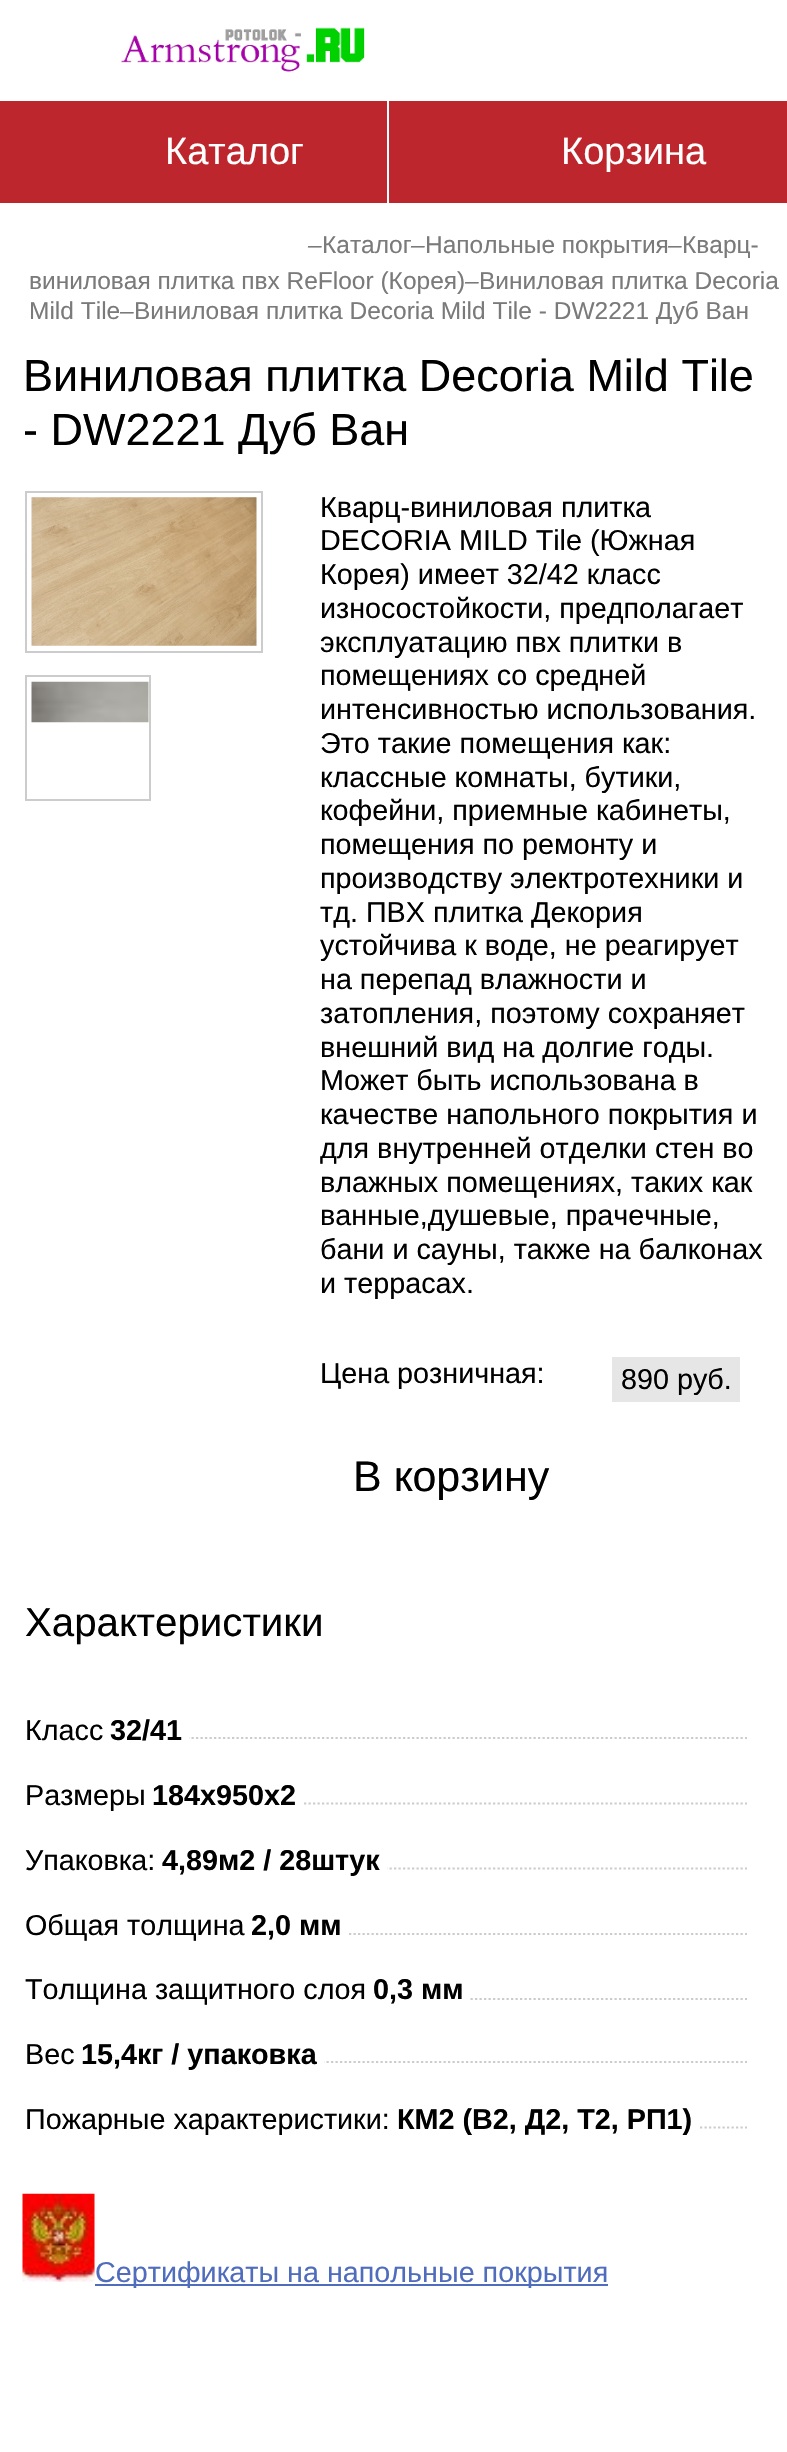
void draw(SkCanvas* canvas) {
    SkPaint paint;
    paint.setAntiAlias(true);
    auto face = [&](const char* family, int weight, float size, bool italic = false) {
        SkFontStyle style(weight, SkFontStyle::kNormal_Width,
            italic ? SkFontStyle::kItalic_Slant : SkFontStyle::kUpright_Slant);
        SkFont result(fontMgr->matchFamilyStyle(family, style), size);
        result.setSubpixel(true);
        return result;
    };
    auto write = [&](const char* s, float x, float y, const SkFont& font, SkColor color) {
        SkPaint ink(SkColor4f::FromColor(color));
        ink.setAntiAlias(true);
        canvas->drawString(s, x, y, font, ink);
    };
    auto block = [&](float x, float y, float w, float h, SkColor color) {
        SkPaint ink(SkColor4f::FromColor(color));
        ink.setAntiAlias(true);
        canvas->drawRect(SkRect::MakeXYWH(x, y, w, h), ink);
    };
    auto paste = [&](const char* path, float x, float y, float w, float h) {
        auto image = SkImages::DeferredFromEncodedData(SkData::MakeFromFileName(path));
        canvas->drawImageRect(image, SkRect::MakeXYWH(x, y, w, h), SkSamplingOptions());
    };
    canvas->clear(SK_ColorWHITE);
    paste("pic1.png", 121, 27, 245, 45);
    block(0, 101, 787, 102, SkColorSetRGB(188, 38, 44));
    block(387, 101, 2, 102, SK_ColorWHITE);
    auto kFont1 = face("Liberation Sans", 400, 38);
    write("Каталог", 165, 164, kFont1, SK_ColorWHITE);
    write("Корзина", 561, 164, kFont1, SK_ColorWHITE);
    auto kFont2 = face("Liberation Sans", 400, 24.5f, true);
    write("–", 308, 253, kFont2, SkColorSetRGB(122, 122, 122));
    auto kFont3 = face("Liberation Sans", 400, 24.5f);
    write("Каталог", 322, 253, kFont3, SkColorSetRGB(122, 122, 122));
    write("–", 411, 253, kFont2, SkColorSetRGB(122, 122, 122));
    write("Напольные покрытия", 425, 253, kFont3, SkColorSetRGB(122, 122, 122));
    write("–", 668, 253, kFont2, SkColorSetRGB(122, 122, 122));
    write("Кварц-", 682, 253, kFont3, SkColorSetRGB(122, 122, 122));
    write("виниловая плитка пвх ReFloor (Корея)", 29, 289, kFont3, SkColorSetRGB(122, 122, 122));
    write("–", 465, 289, kFont2, SkColorSetRGB(122, 122, 122));
    write("Виниловая плитка Decoria", 479, 289, kFont3, SkColorSetRGB(122, 122, 122));
    write("Mild Tile", 29, 319, kFont3, SkColorSetRGB(122, 122, 122));
    write("–", 120, 319, kFont2, SkColorSetRGB(122, 122, 122));
    write("Виниловая плитка Decoria Mild Tile - DW2221 Дуб Ван", 134, 319, kFont3, SkColorSetRGB(122, 122, 122));
    auto kFont4 = face("Liberation Sans", 400, 45);
    write("Виниловая плитка Decoria Mild Tile", 23, 391, kFont4, SK_ColorBLACK);
    write("- DW2221 Дуб Ван", 23, 445, kFont4, SK_ColorBLACK);
    paint.setStyle(SkPaint::kStroke_Style);
    paint.setStrokeWidth(2);
    paint.setColor(SkColorSetRGB(204, 204, 204));
    canvas->drawRect(SkRect::MakeXYWH(26, 492, 236, 160), paint);
    paste("pic2.png", 31, 497, 226, 149);
    canvas->drawRect(SkRect::MakeXYWH(26, 676, 124, 124), paint);
    paste("pic3.png", 31, 681, 118, 42);
    auto kFont5 = face("Liberation Sans", 400, 28.75f);
    write("Кварц-виниловая плитка", 320, 517, kFont5, SK_ColorBLACK);
    write("DECORIA MILD Tile (Южная", 320, 550, kFont5, SK_ColorBLACK);
    write("Корея) имеет 32/42 класс", 320, 584, kFont5, SK_ColorBLACK);
    write("износостойкости, предполагает", 320, 618, kFont5, SK_ColorBLACK);
    write("эксплуатацию пвх плитки в", 320, 652, kFont5, SK_ColorBLACK);
    write("помещениях со средней", 320, 685, kFont5, SK_ColorBLACK);
    write("интенсивностью использования.", 320, 719, kFont5, SK_ColorBLACK);
    write("Это такие помещения как:", 320, 753, kFont5, SK_ColorBLACK);
    write("классные комнаты, бутики,", 320, 787, kFont5, SK_ColorBLACK);
    write("кофейни, приемные кабинеты,", 320, 820, kFont5, SK_ColorBLACK);
    write("помещения по ремонту и", 320, 854, kFont5, SK_ColorBLACK);
    write("производству электротехники и", 320, 888, kFont5, SK_ColorBLACK);
    write("тд. ПВХ плитка Декория", 320, 922, kFont5, SK_ColorBLACK);
    write("устойчива к воде, не реагирует", 320, 955, kFont5, SK_ColorBLACK);
    write("на перепад влажности и", 320, 989, kFont5, SK_ColorBLACK);
    write("затопления, поэтому сохраняет", 320, 1023, kFont5, SK_ColorBLACK);
    write("внешний вид на долгие годы.", 320, 1057, kFont5, SK_ColorBLACK);
    write("Может быть использована в", 320, 1090, kFont5, SK_ColorBLACK);
    write("качестве напольного покрытия и", 320, 1124, kFont5, SK_ColorBLACK);
    write("для внутренней отделки стен во", 320, 1158, kFont5, SK_ColorBLACK);
    write("влажных помещениях, таких как", 320, 1192, kFont5, SK_ColorBLACK);
    write("ванные,душевые, прачечные,", 320, 1225, kFont5, SK_ColorBLACK);
    write("бани и сауны, также на балконах", 320, 1259, kFont5, SK_ColorBLACK);
    write("и террасах.", 320, 1293, kFont5, SK_ColorBLACK);
    write("Цена розничная:", 320, 1383, kFont5, SK_ColorBLACK);
    block(612, 1357, 128, 45, SkColorSetRGB(230, 230, 230));
    write("890 руб.", 621, 1389, kFont5, SK_ColorBLACK);
    auto kFont6 = face("Liberation Sans", 400, 43);
    write("В корзину", 353, 1491, kFont6, SK_ColorBLACK);
    auto kFont7 = face("Liberation Sans", 400, 40.25f);
    write("Характеристики", 25, 1636, kFont7, SK_ColorBLACK);
    paint.setStrokeWidth(2.2f);
    paint.setPathEffect(SkDashPathEffect::Make({{2.25f, 2.25f}}, 0));
    canvas->drawPath(SkPathBuilder().moveTo(25, 1738).lineTo(747, 1738).detach(), paint);
    paint.setPathEffect(nullptr);
    block(25, 1736, 84, 4, SK_ColorWHITE);
    write("Класс", 25, 1740, kFont5, SK_ColorBLACK);
    block(110, 1736, 79, 4, SK_ColorWHITE);
    auto kFont8 = face("Liberation Sans", 700, 28.75f);
    write("32/41", 110, 1740, kFont8, SK_ColorBLACK);
    paint.setPathEffect(SkDashPathEffect::Make({{2.25f, 2.25f}}, 0));
    canvas->drawPath(SkPathBuilder().moveTo(25, 1803.5f).lineTo(747, 1803.5f).detach(), paint);
    paint.setPathEffect(nullptr);
    block(25, 1802, 277, 3, SK_ColorWHITE);
    write("Размеры", 25, 1805, kFont5, SK_ColorBLACK);
    write("184x950x2", 152, 1805, kFont8, SK_ColorBLACK);
    paint.setPathEffect(SkDashPathEffect::Make({{2.25f, 2.25f}}, 0));
    canvas->drawPath(SkPathBuilder().moveTo(25, 1868.5f).lineTo(747, 1868.5f).detach(), paint);
    paint.setPathEffect(nullptr);
    block(25, 1867, 362, 3, SK_ColorWHITE);
    write("Упаковка:", 25, 1870, kFont5, SK_ColorBLACK);
    write("4,89м2 / 28штук", 162, 1870, kFont8, SK_ColorBLACK);
    paint.setPathEffect(SkDashPathEffect::Make({{2.25f, 2.25f}}, 0));
    canvas->drawPath(SkPathBuilder().moveTo(25, 1934).lineTo(747, 1934).detach(), paint);
    paint.setPathEffect(nullptr);
    block(25, 1932, 322, 4, SK_ColorWHITE);
    write("Общая толщина", 25, 1935, kFont5, SK_ColorBLACK);
    write("2,0 мм", 251, 1935, kFont8, SK_ColorBLACK);
    paint.setPathEffect(SkDashPathEffect::Make({{2.25f, 2.25f}}, 0));
    canvas->drawPath(SkPathBuilder().moveTo(25, 1999).lineTo(747, 1999).detach(), paint);
    paint.setPathEffect(nullptr);
    block(25, 1997, 349, 4, SK_ColorWHITE);
    write("Толщина защитного слоя", 25, 1999, kFont5, SK_ColorBLACK);
    block(376, 1997, 93, 4, SK_ColorWHITE);
    write("0,3 мм", 373, 1999, kFont8, SK_ColorBLACK);
    paint.setPathEffect(SkDashPathEffect::Make({{2.25f, 2.25f}}, 0));
    canvas->drawPath(SkPathBuilder().moveTo(25, 2062).lineTo(747, 2062).detach(), paint);
    paint.setPathEffect(nullptr);
    block(25, 2060, 299, 4, SK_ColorWHITE);
    write("Вес", 25, 2064, kFont5, SK_ColorBLACK);
    write("15,4кг / упаковка", 81, 2064, kFont8, SK_ColorBLACK);
    paint.setPathEffect(SkDashPathEffect::Make({{2.25f, 2.25f}}, 0));
    canvas->drawPath(SkPathBuilder().moveTo(25, 2127.5f).lineTo(747, 2127.5f).detach(), paint);
    paint.setPathEffect(nullptr);
    block(25, 2126, 673, 3, SK_ColorWHITE);
    write("Пожарные характеристики:", 25, 2129, kFont5, SK_ColorBLACK);
    write("КМ2 (В2, Д2, Т2, РП1)", 397, 2129, kFont8, SK_ColorBLACK);
    paste("pic4.png", 22, 2193, 73, 89);
    block(95, 2284, 513, 2, SkColorSetRGB(80, 108, 188));
    write("Сертификаты на напольные покрытия", 95, 2282, kFont5, SkColorSetRGB(80, 108, 188));
}
